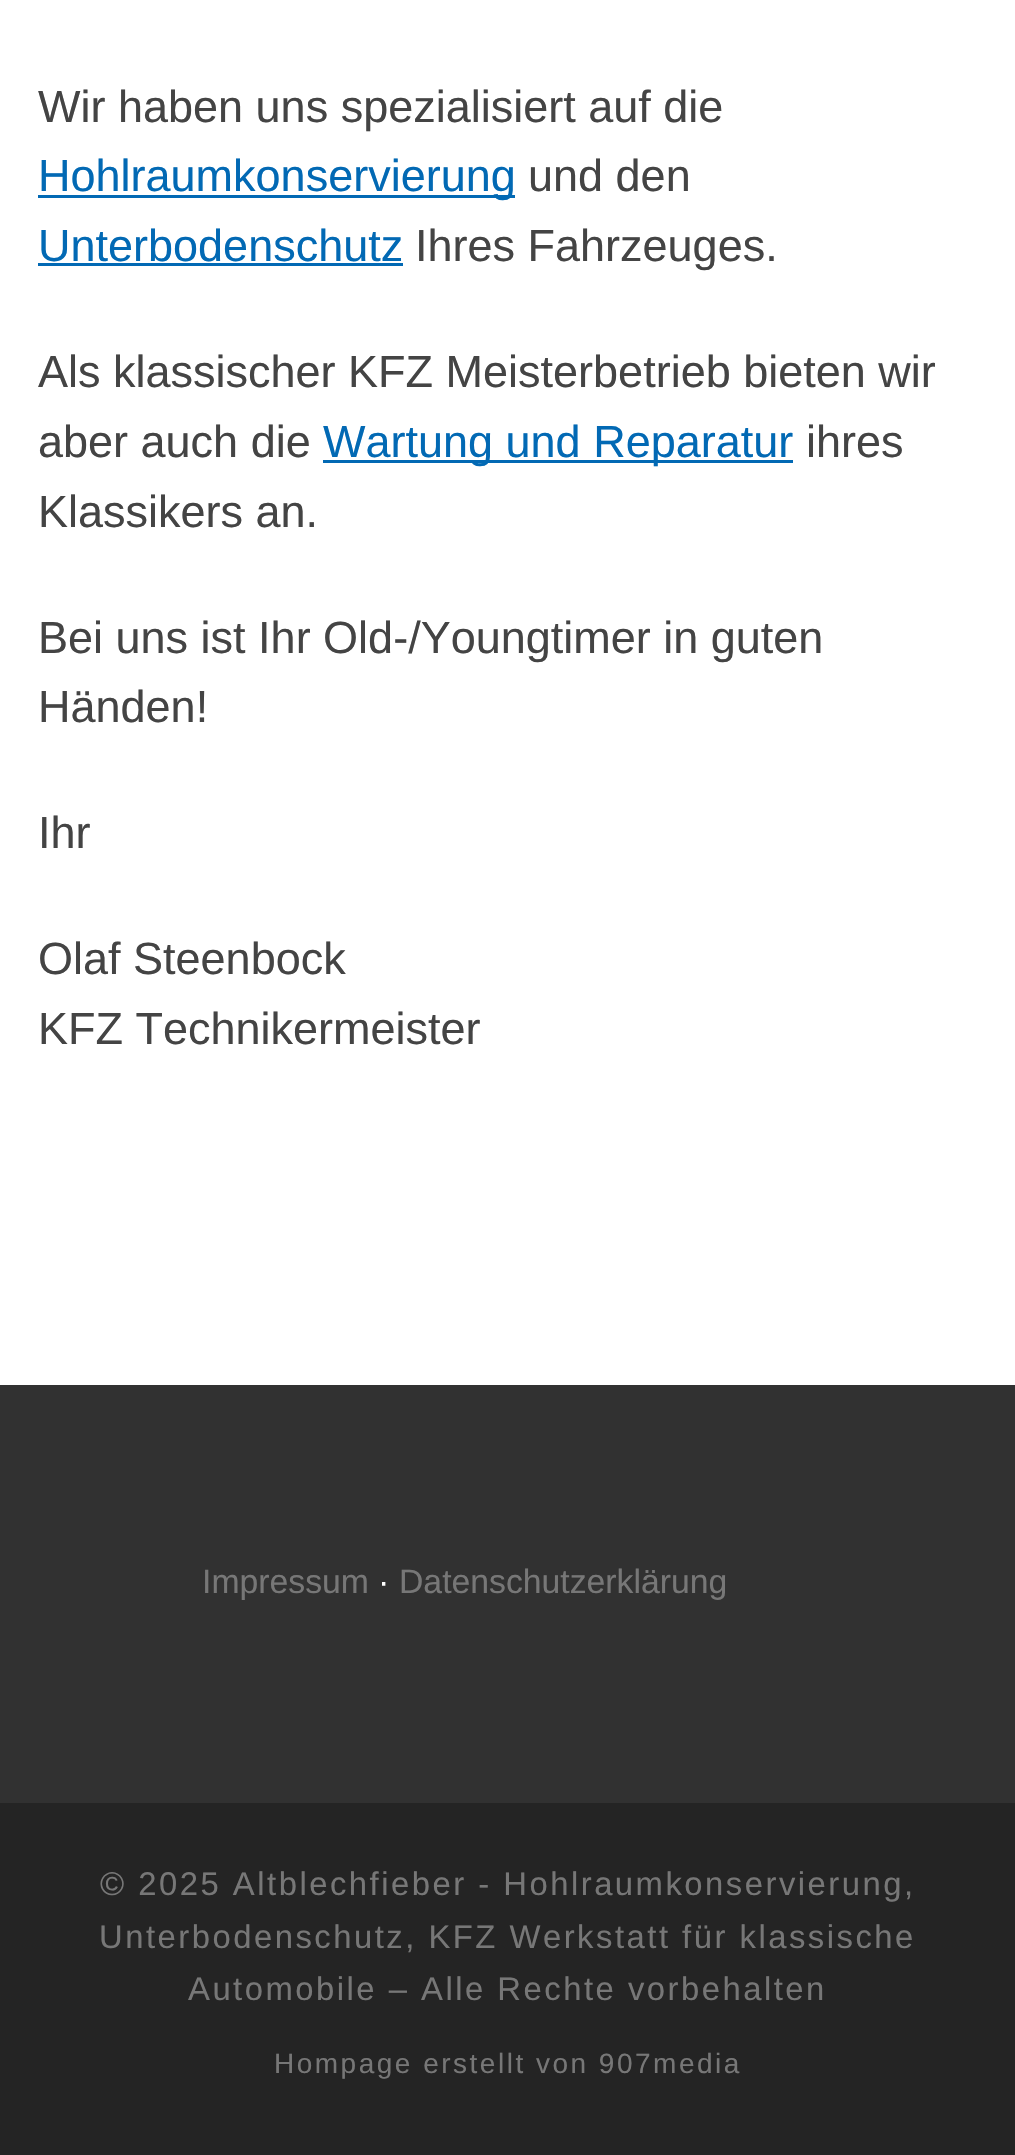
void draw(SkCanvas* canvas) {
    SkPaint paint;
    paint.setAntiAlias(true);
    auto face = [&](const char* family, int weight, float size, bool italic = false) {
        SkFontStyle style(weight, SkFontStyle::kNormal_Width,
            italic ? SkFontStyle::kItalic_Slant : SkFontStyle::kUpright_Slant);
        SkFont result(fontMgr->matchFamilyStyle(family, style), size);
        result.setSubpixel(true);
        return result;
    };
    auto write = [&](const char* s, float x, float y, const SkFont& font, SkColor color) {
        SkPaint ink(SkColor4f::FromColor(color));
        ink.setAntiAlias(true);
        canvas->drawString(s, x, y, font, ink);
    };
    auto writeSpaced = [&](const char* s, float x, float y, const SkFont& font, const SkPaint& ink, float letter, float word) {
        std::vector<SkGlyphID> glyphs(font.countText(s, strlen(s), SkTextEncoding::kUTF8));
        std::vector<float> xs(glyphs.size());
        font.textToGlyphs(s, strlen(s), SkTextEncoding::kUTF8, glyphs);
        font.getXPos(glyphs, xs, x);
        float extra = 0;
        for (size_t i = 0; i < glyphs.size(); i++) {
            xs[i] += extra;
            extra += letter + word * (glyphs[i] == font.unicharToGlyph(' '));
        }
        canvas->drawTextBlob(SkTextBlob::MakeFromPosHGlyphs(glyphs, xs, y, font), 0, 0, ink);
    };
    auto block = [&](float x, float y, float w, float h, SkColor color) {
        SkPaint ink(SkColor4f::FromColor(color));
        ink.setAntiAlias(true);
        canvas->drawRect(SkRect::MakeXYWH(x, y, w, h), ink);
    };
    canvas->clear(SK_ColorWHITE);
    auto kFont1 = face("Liberation Sans", 400, 45);
    write("Wir haben uns spezialisiert auf die", 38, 122, kFont1, SkColorSetRGB(68, 68, 68));
    block(38, 195, 477, 3, SkColorSetRGB(2, 105, 180));
    write("Hohlraumkonservierung", 38, 191, kFont1, SkColorSetRGB(2, 105, 180));
    write("und den", 528, 191, kFont1, SkColorSetRGB(68, 68, 68));
    write("Unterbodenschutz", 38, 261, kFont1, SkColorSetRGB(2, 105, 180));
    block(38, 263, 365, 3, SkColorSetRGB(2, 105, 180));
    write("Ihres Fahrzeuges.", 415, 261, kFont1, SkColorSetRGB(68, 68, 68));
    write("Als klassischer KFZ Meisterbetrieb bieten wir", 38, 387, kFont1, SkColorSetRGB(68, 68, 68));
    write("aber auch die", 38, 457, kFont1, SkColorSetRGB(68, 68, 68));
    block(323, 460, 470, 3, SkColorSetRGB(2, 105, 180));
    write("Wartung und Reparatur", 323, 457, kFont1, SkColorSetRGB(2, 105, 180));
    write("ihres", 806, 457, kFont1, SkColorSetRGB(68, 68, 68));
    write("Klassikers an.", 38, 527, kFont1, SkColorSetRGB(68, 68, 68));
    write("Bei uns ist Ihr Old-/Youngtimer in guten", 38, 653, kFont1, SkColorSetRGB(68, 68, 68));
    write("Händen!", 38, 722, kFont1, SkColorSetRGB(68, 68, 68));
    write("Ihr", 38, 848, kFont1, SkColorSetRGB(68, 68, 68));
    write("Olaf Steenbock", 38, 974, kFont1, SkColorSetRGB(68, 68, 68));
    write("KFZ Technikermeister", 38, 1044, kFont1, SkColorSetRGB(68, 68, 68));
    block(0, 1385, 1015, 418, SkColorSetRGB(49, 49, 49));
    auto kFont2 = face("Liberation Sans", 400, 33.75f);
    write("Impressum", 202, 1593, kFont2, SkColorSetRGB(119, 119, 119));
    write("·", 378, 1593, kFont2, SK_ColorWHITE);
    write("Datenschutzerklärung", 399, 1593, kFont2, SkColorSetRGB(119, 119, 119));
    block(0, 1803, 1015, 352, SkColorSetRGB(36, 36, 36));
    auto kFont3 = face("Liberation Sans", 400, 32.8f);
    paint.setColor(SkColorSetRGB(119, 119, 119));
    writeSpaced("© 2025 Altblechfieber - Hohlraumkonservierung,", 100, 1895, kFont3, paint, 2.5f, 0);
    writeSpaced("Unterbodenschutz, KFZ Werkstatt für klassische", 99, 1948, kFont3, paint, 2.5f, 0);
    writeSpaced("Automobile – Alle Rechte vorbehalten", 188, 2000, kFont3, paint, 2.5f, 0);
    auto kFont4 = face("Liberation Sans", 400, 28);
    writeSpaced("Hompage erstellt von 907media", 274, 2073, kFont4, paint, 2.5f, 0);
}
